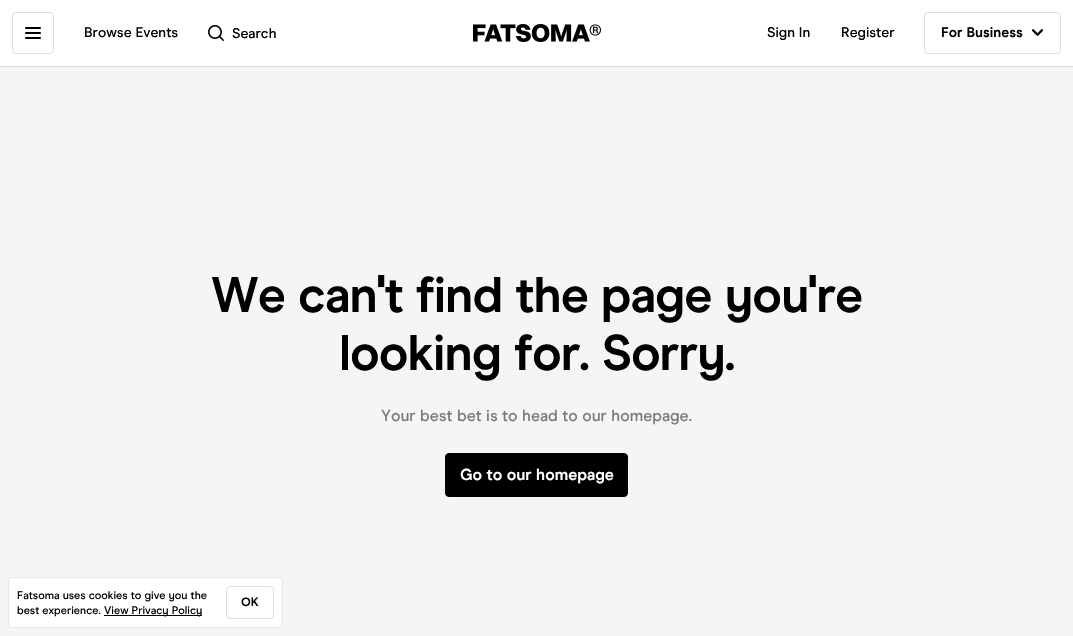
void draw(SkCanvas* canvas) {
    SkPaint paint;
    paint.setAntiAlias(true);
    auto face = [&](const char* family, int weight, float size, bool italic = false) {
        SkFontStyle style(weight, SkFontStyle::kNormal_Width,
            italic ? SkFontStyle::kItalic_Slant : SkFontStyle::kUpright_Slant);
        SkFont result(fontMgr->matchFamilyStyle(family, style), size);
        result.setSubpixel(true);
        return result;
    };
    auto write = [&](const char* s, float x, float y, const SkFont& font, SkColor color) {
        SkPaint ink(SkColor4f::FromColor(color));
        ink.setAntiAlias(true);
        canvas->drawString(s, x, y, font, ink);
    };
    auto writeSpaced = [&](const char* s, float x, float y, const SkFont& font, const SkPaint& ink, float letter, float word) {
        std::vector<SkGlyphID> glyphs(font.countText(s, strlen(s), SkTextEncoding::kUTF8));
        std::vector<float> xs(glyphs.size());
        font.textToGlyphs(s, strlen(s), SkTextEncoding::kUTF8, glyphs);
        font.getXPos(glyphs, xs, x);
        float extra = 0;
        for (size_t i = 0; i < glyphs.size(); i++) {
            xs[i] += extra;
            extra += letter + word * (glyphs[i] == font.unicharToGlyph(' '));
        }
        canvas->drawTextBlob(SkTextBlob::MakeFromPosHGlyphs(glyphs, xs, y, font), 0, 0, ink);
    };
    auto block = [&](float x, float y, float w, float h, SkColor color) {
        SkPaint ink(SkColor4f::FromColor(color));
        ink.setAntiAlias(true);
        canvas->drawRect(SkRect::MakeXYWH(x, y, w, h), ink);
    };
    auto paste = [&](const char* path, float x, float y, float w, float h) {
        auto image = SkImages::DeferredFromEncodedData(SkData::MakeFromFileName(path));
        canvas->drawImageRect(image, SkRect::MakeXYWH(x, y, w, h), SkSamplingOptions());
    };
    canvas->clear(SkColorSetRGB(245, 245, 245));
    block(0, 0, 1073, 66, SK_ColorWHITE);
    block(0, 66, 1073, 1, SkColorSetRGB(221, 221, 221));
    paint.setStyle(SkPaint::kStroke_Style);
    paint.setStrokeWidth(1);
    paint.setColor(SkColorSetRGB(221, 221, 221));
    canvas->drawRoundRect(SkRect::MakeXYWH(12.5f, 12.5f, 41, 41), 3.5f, 3.5f, paint);
    paste("pic1.png", 25, 27, 16, 12);
    auto kFont1 = face("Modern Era", 500, 14);
    write("Browse Events", 84, 37, kFont1, SK_ColorBLACK);
    paste("pic2.png", 208, 25, 16, 16);
    write("Search", 232, 38, kFont1, SK_ColorBLACK);
    paste("pic3.png", 473, 24, 128, 18);
    write("Sign In", 767, 37, kFont1, SK_ColorBLACK);
    write("Register", 841, 37, kFont1, SK_ColorBLACK);
    canvas->drawRoundRect(SkRect::MakeXYWH(924.5f, 12.5f, 136, 41), 3.5f, 3.5f, paint);
    auto kFont2 = face("Modern Era", 700, 14);
    write("For Business", 941, 37, kFont2, SK_ColorBLACK);
    paste("pic4.png", 1032, 29, 11, 7);
    auto kFont3 = face("Modern Era", 700, 50);
    paint.setStyle(SkPaint::kFill_Style);
    paint.setColor(SK_ColorBLACK);
    writeSpaced("We can't find the page you're", 211, 312, kFont3, paint, -1, 0);
    writeSpaced("looking for. Sorry.", 339, 370, kFont3, paint, -1, 0);
    auto kFont4 = face("Modern Era", 500, 16);
    write("Your best bet is to head to our homepage.", 381, 421, kFont4, SkColorSetRGB(121, 121, 121));
    canvas->drawRoundRect(SkRect::MakeXYWH(445.5f, 453.5f, 182, 43), 3.5f, 3.5f, paint);
    paint.setStyle(SkPaint::kStroke_Style);
    canvas->drawRoundRect(SkRect::MakeXYWH(445.5f, 453.5f, 182, 43), 3.5f, 3.5f, paint);
    auto kFont5 = face("Modern Era", 700, 16);
    write("Go to our homepage", 460, 480, kFont5, SK_ColorWHITE);
    paint.setStyle(SkPaint::kFill_Style);
    paint.setColor(SK_ColorWHITE);
    canvas->drawRoundRect(SkRect::MakeXYWH(8.5f, 577.5f, 274, 50), 3.5f, 3.5f, paint);
    paint.setStyle(SkPaint::kStroke_Style);
    paint.setColor(SkColorSetRGB(231, 231, 231));
    canvas->drawRoundRect(SkRect::MakeXYWH(8.5f, 577.5f, 274, 50), 3.5f, 3.5f, paint);
    auto kFont6 = face("Modern Era", 500, 11);
    write("Fatsoma uses cookies to give you the", 17, 599, kFont6, SK_ColorBLACK);
    write("best experience.", 17, 614, kFont6, SK_ColorBLACK);
    block(104, 615, 98, 1, SK_ColorBLACK);
    write("View Privacy Policy", 104, 614, kFont6, SK_ColorBLACK);
    paint.setColor(SkColorSetRGB(221, 221, 221));
    canvas->drawRoundRect(SkRect::MakeXYWH(226.5f, 586.5f, 47, 32), 3.5f, 3.5f, paint);
    auto kFont7 = face("Modern Era", 700, 12);
    write("OK", 241, 606, kFont7, SK_ColorBLACK);
}
